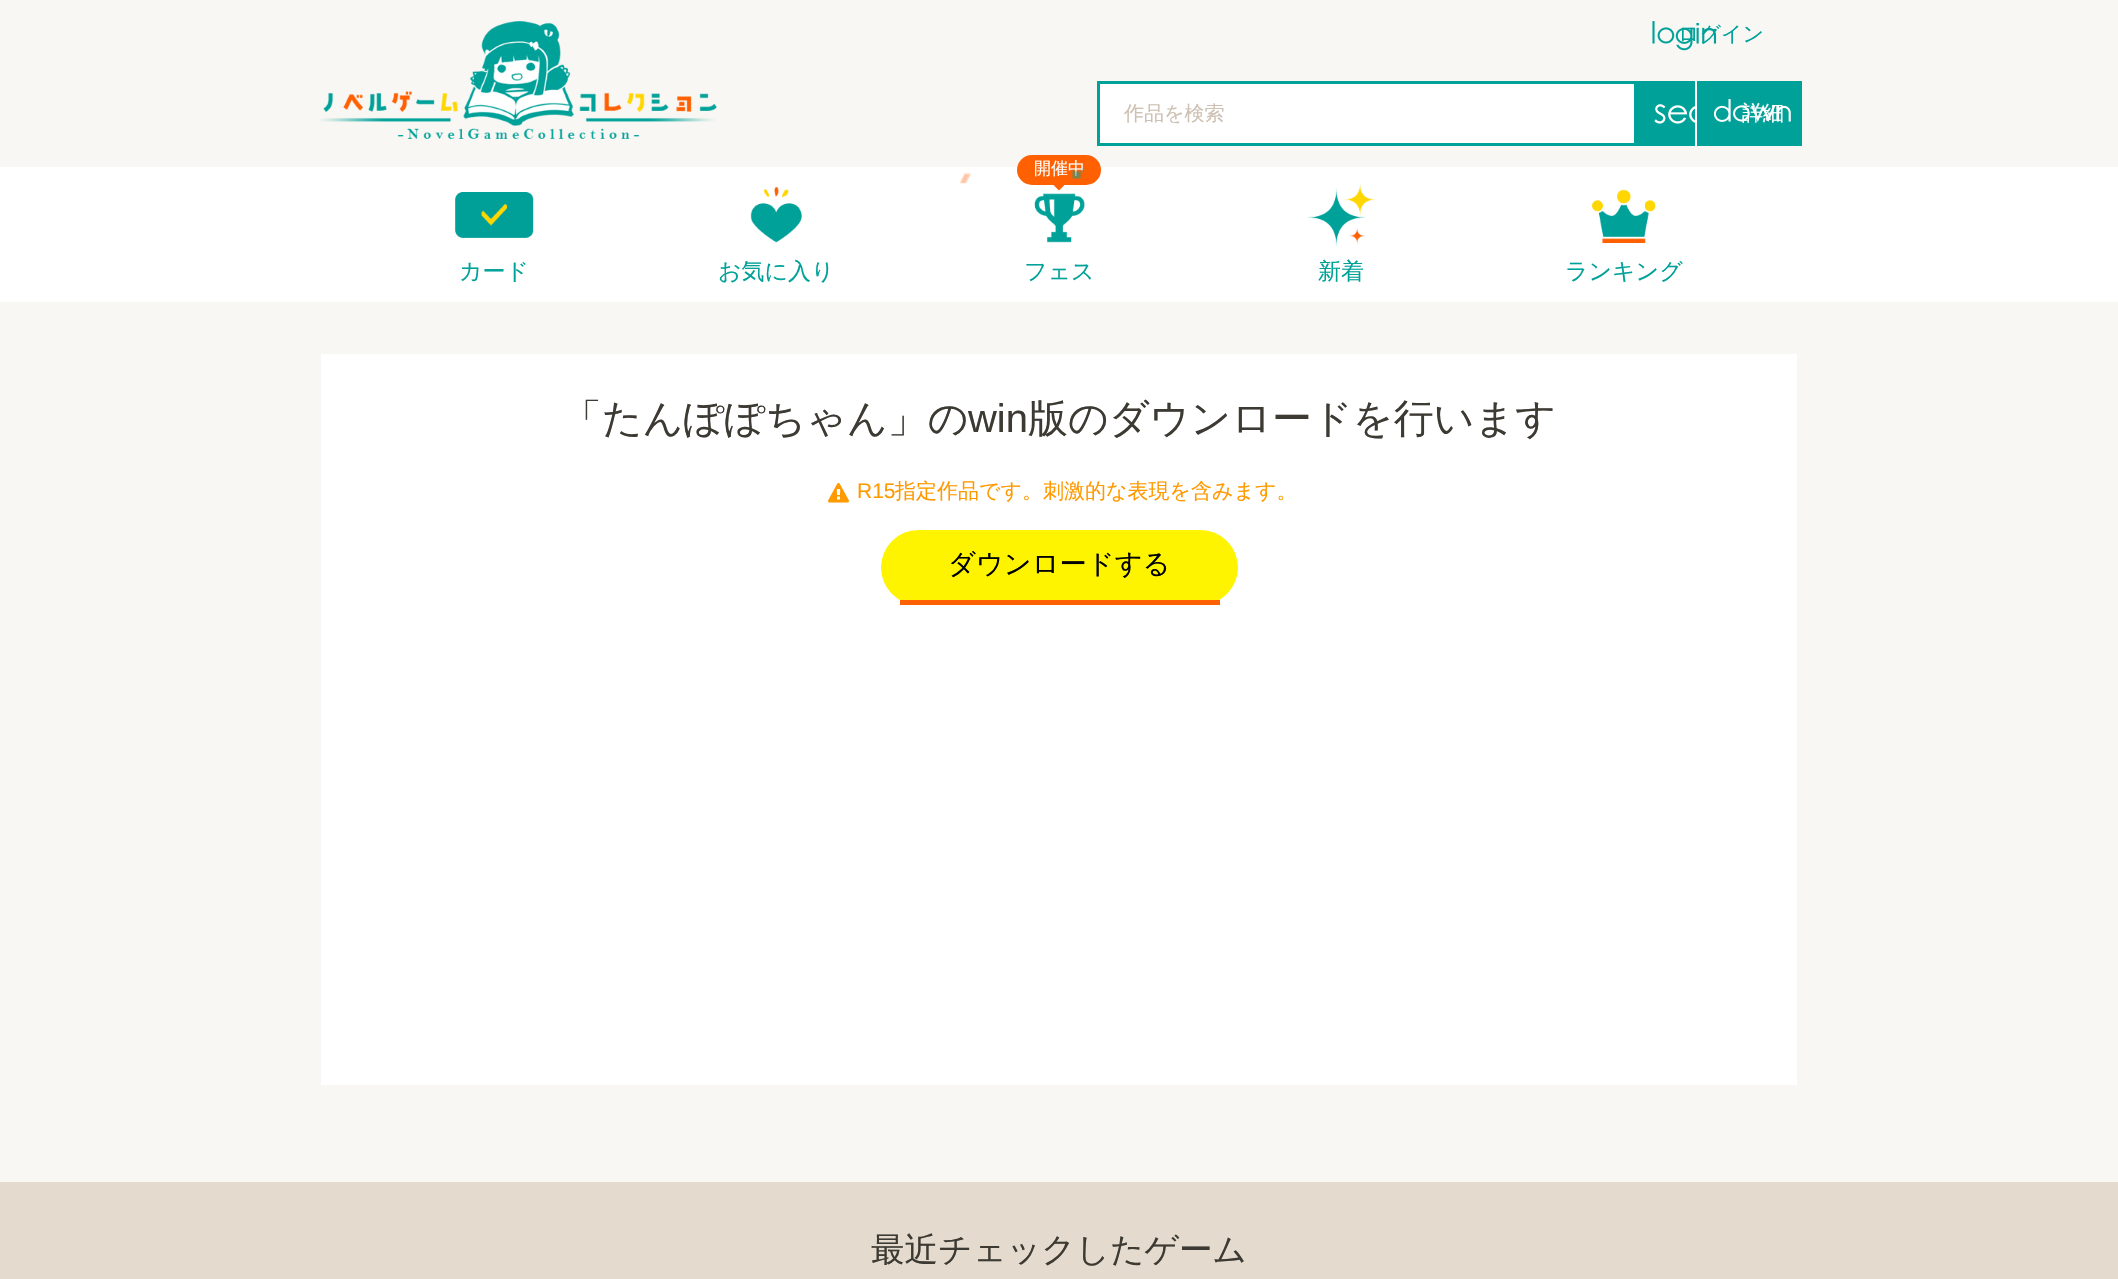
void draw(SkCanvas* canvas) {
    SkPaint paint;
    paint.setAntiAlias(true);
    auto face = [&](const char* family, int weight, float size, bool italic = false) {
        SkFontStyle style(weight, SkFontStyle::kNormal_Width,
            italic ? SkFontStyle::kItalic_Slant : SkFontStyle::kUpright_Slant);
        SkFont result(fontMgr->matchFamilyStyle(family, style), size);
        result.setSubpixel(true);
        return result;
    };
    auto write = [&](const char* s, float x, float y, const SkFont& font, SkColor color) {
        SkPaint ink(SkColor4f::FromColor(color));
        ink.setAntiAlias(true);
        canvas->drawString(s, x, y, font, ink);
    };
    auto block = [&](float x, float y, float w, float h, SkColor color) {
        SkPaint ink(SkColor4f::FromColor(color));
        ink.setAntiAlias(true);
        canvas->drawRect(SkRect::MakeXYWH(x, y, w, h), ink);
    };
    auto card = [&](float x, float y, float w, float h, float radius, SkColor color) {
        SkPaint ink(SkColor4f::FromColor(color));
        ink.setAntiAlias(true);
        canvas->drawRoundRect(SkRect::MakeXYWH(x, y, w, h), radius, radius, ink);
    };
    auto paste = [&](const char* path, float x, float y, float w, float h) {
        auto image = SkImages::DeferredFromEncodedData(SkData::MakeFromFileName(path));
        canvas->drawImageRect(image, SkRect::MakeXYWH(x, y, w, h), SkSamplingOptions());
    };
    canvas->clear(SkColorSetRGB(249, 247, 243));
    paste("pic1.png", 319, 21, 398, 118);
    block(0, 167, 2118, 135, SK_ColorWHITE);
    paste("pic2.png", 1652, 21, 65, 30);
    auto kFont1 = face("WenQuanYi Zen Hei", 500, 21);
    write("ログイン", 1678, 41, kFont1, SkColorSetRGB(0, 161, 153));
    paste("pic3.png", 455, 192, 79, 46);
    auto kFont2 = face("WenQuanYi Zen Hei", 500, 23);
    write("カード", 459, 279, kFont2, SkColorSetRGB(0, 161, 153));
    paste("pic4.png", 750, 186, 52, 57);
    write("お気に入り", 718, 279, kFont2, SkColorSetRGB(0, 161, 153));
    paste("pic5.png", 960, 172, 117, 14);
    paste("pic6.png", 960, 172, 117, 14);
    card(1017, 155, 84, 30, 15, SkColorSetRGB(255, 96, 1));
    auto kFont3 = face("WenQuanYi Zen Hei", 500, 17);
    write("開催中", 1034, 174, kFont3, SK_ColorWHITE);
    paint.setColor(SkColorSetRGB(255, 96, 1));
    canvas->drawPath(SkPathBuilder().moveTo(1051.5f, 183).lineTo(1066.5f, 183).lineTo(1059, 190.5f).close().detach(), paint);
    paste("pic7.png", 1072, 168, 13, 11);
    paste("pic8.png", 1034, 193, 51, 50);
    write("フェス", 1024, 279, kFont2, SkColorSetRGB(0, 161, 153));
    paste("pic9.png", 1307, 184, 69, 62);
    write("新着", 1318, 279, kFont2, SkColorSetRGB(0, 161, 153));
    paste("pic10.png", 1591, 189, 65, 54);
    write("ランキング", 1565, 279, kFont2, SkColorSetRGB(0, 161, 153));
    paint.setColor(SK_ColorWHITE);
    canvas->drawRect(SkRect::MakeXYWH(1098.5f, 82.5f, 537, 62), paint);
    paint.setStyle(SkPaint::kStroke_Style);
    paint.setStrokeWidth(3);
    paint.setColor(SkColorSetRGB(0, 161, 153));
    canvas->drawRect(SkRect::MakeXYWH(1098.5f, 82.5f, 537, 62), paint);
    auto kFont4 = face("WenQuanYi Zen Hei", 500, 20);
    write("作品を検索", 1124, 120, kFont4, SkColorSetRGB(206, 193, 179));
    block(1637, 81, 58, 65, SkColorSetRGB(0, 161, 153));
    block(1695, 81, 2, 65, SK_ColorWHITE);
    paste("pic11.png", 1654, 104, 41, 20);
    block(1697, 81, 105, 65, SkColorSetRGB(0, 161, 153));
    paste("pic12.png", 1713, 99, 78, 23);
    write("詳細", 1742, 120, kFont1, SK_ColorWHITE);
    block(321, 354, 1476, 731, SK_ColorWHITE);
    auto kFont5 = face("WenQuanYi Zen Hei", 500, 39.9f);
    write("「たんぽぽちゃん」の", 562, 432, kFont5, SkColorSetRGB(60, 58, 51));
    auto kFont6 = face("Liberation Sans", 400, 39.9f);
    write("win", 968, 432, kFont6, SkColorSetRGB(60, 58, 51));
    write("版のダウンロードを行います", 1028, 432, kFont5, SkColorSetRGB(60, 58, 51));
    paste("pic13.png", 828, 483, 21, 20);
    auto kFont7 = face("Liberation Sans", 400, 21);
    write("R15", 857, 498, kFont7, SkColorSetRGB(255, 153, 0));
    write("指定作品です。刺激的な表現を含みます。", 895, 498, kFont1, SkColorSetRGB(255, 153, 0));
    card(881, 530, 357, 75, 37.5f, SkColorSetRGB(255, 244, 0));
    block(900, 600, 320, 5, SkColorSetRGB(255, 96, 1));
    auto kFont8 = face("WenQuanYi Zen Hei", 500, 27.25f);
    write("ダウンロードする", 948, 573, kFont8, SK_ColorBLACK);
    block(0, 1182, 2118, 97, SkColorSetRGB(228, 218, 206));
    auto kFont9 = face("WenQuanYi Zen Hei", 500, 33.6f);
    write("最近チェックしたゲーム", 871, 1261, kFont9, SkColorSetRGB(60, 58, 51));
}
